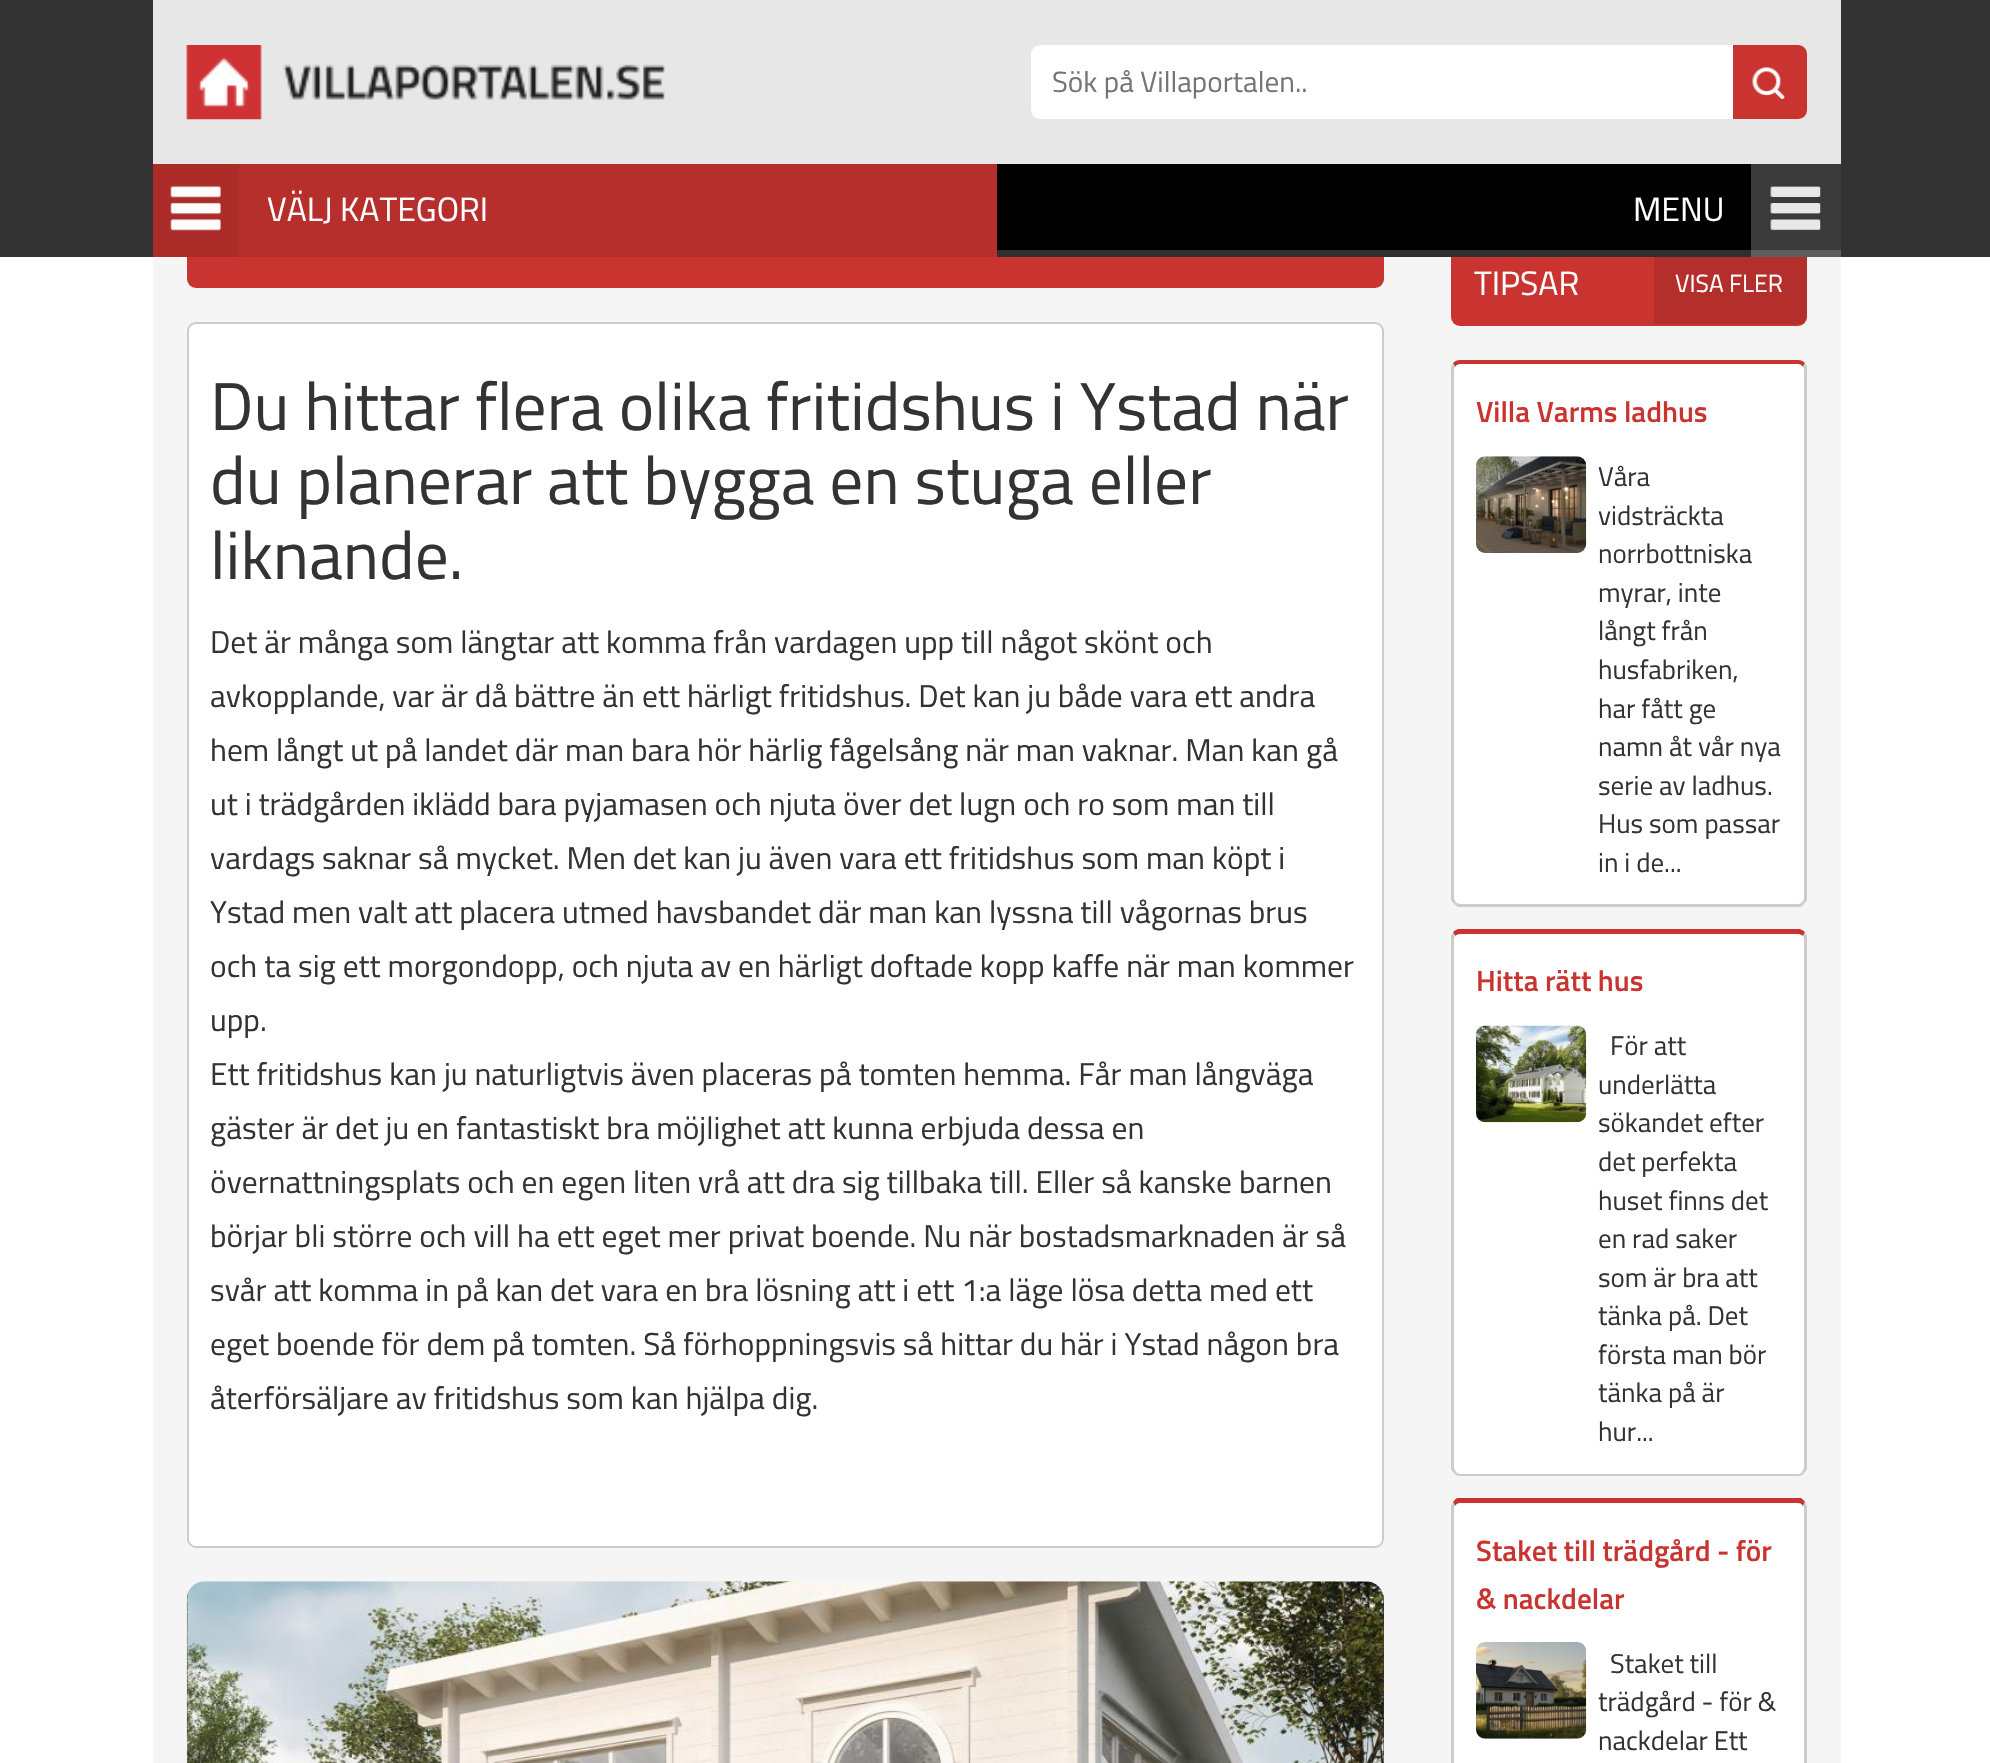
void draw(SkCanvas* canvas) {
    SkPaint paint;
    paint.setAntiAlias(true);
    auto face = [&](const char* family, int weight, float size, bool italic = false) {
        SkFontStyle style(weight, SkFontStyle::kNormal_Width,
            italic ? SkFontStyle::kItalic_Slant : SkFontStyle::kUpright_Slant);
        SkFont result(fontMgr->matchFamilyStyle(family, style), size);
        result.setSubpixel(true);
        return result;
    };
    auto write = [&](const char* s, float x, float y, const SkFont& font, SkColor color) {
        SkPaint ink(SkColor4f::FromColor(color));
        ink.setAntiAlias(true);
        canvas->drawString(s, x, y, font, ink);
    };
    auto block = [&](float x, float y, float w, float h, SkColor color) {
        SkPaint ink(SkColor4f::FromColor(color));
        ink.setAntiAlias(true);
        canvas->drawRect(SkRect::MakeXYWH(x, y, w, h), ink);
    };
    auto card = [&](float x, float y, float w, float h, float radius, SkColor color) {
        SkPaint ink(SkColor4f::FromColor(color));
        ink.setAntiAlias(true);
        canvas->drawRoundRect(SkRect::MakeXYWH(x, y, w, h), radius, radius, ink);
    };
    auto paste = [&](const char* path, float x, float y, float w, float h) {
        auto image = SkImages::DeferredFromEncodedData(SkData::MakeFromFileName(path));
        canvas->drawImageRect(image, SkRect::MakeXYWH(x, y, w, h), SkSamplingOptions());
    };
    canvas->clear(SK_ColorWHITE);
    block(153, 257, 1688, 1506, SkColorSetRGB(245, 245, 245));
    card(187, 207, 1197, 81, 9, SkColorSetRGB(201, 52, 49));
    card(1451, 207, 356, 119, 9, SkColorSetRGB(201, 52, 49));
    paint.setColor(SkColorSetRGB(180, 47, 44));
    canvas->drawPath(SkPathBuilder().moveTo(1654, 245).lineTo(1798, 245).cubicTo(1803, 245, 1807, 249, 1807, 254).lineTo(1807, 315).cubicTo(1807, 320, 1803, 324, 1798, 324).lineTo(1654, 324).close().detach(), paint);
    block(0, 0, 1990, 257, SkColorSetRGB(51, 51, 51));
    block(153, 0, 1688, 164, SkColorSetRGB(231, 231, 231));
    paste("pic1.png", 186, 45, 479, 75);
    card(1031, 45, 776, 74, 9, SK_ColorWHITE);
    auto kFont1 = face("Titillium Web", 400, 29.25f);
    write("Sök på Villaportalen..", 1052, 92, kFont1, SkColorSetRGB(117, 117, 117));
    paint.setColor(SkColorSetRGB(201, 52, 49));
    canvas->drawPath(SkPathBuilder().moveTo(1733, 45).lineTo(1798, 45).cubicTo(1803, 45, 1807, 49, 1807, 54).lineTo(1807, 110).cubicTo(1807, 115, 1803, 119, 1798, 119).lineTo(1733, 119).close().detach(), paint);
    paste("pic2.png", 1752, 67, 33, 32);
    block(239, 164, 758, 93, SkColorSetRGB(183, 47, 45));
    block(153, 164, 86, 93, SkColorSetRGB(172, 44, 42));
    paste("pic3.png", 170, 186, 51, 45);
    auto kFont2 = face("Titillium Web", 400, 33.75f);
    write("VÄLJ KATEGORI", 267, 221, kFont2, SK_ColorWHITE);
    block(997, 164, 844, 86, SK_ColorBLACK);
    block(1751, 164, 90, 93, SkColorSetARGB(64, 255, 255, 255));
    paste("pic4.png", 1770, 186, 51, 45);
    block(997, 164, 844, 93, SkColorSetARGB(23, 0, 0, 0));
    write("MENU", 1633, 221, kFont2, SK_ColorWHITE);
    paint.setColor(SK_ColorWHITE);
    canvas->drawRoundRect(SkRect::MakeXYWH(188, 323, 1195, 1224), 8, 8, paint);
    paint.setStyle(SkPaint::kStroke_Style);
    paint.setStrokeWidth(2);
    paint.setColor(SkColorSetRGB(204, 204, 204));
    canvas->drawRoundRect(SkRect::MakeXYWH(188, 323, 1195, 1224), 8, 8, paint);
    auto kFont3 = face("Titillium Web", 400, 67.5f);
    write("Du hittar flera olika fritidshus i Ystad när", 210, 430, kFont3, SkColorSetRGB(51, 51, 51));
    write("du planerar att bygga en stuga eller", 210, 504, kFont3, SkColorSetRGB(51, 51, 51));
    write("liknande.", 210, 579, kFont3, SkColorSetRGB(51, 51, 51));
    auto kFont4 = face("Titillium Web", 400, 31.5f);
    write("Det är många som längtar att komma från vardagen upp till något skönt och", 210, 653, kFont4, SkColorSetRGB(51, 51, 51));
    write("avkopplande, var är då bättre än ett härligt fritidshus. Det kan ju både vara ett andra", 210, 707, kFont4, SkColorSetRGB(51, 51, 51));
    write("hem långt ut på landet där man bara hör härlig fågelsång när man vaknar. Man kan gå", 210, 761, kFont4, SkColorSetRGB(51, 51, 51));
    write("ut i trädgården iklädd bara pyjamasen och njuta över det lugn och ro som man till", 210, 815, kFont4, SkColorSetRGB(51, 51, 51));
    write("vardags saknar så mycket. Men det kan ju även vara ett fritidshus som man köpt i", 210, 869, kFont4, SkColorSetRGB(51, 51, 51));
    write("Ystad men valt att placera utmed havsbandet där man kan lyssna till vågornas brus", 210, 923, kFont4, SkColorSetRGB(51, 51, 51));
    write("och ta sig ett morgondopp, och njuta av en härligt doftade kopp kaffe när man kommer", 210, 977, kFont4, SkColorSetRGB(51, 51, 51));
    write("upp.", 210, 1031, kFont4, SkColorSetRGB(51, 51, 51));
    write("Ett fritidshus kan ju naturligtvis även placeras på tomten hemma. Får man långväga", 210, 1085, kFont4, SkColorSetRGB(51, 51, 51));
    write("gäster är det ju en fantastiskt bra möjlighet att kunna erbjuda dessa en", 210, 1139, kFont4, SkColorSetRGB(51, 51, 51));
    write("övernattningsplats och en egen liten vrå att dra sig tillbaka till. Eller så kanske barnen", 210, 1193, kFont4, SkColorSetRGB(51, 51, 51));
    write("börjar bli större och vill ha ett eget mer privat boende. Nu när bostadsmarknaden är så", 210, 1247, kFont4, SkColorSetRGB(51, 51, 51));
    write("svår att komma in på kan det vara en bra lösning att i ett 1:a läge lösa detta med ett", 210, 1301, kFont4, SkColorSetRGB(51, 51, 51));
    write("eget boende för dem på tomten. Så förhoppningsvis så hittar du här i Ystad någon bra", 210, 1355, kFont4, SkColorSetRGB(51, 51, 51));
    write("återförsäljare av fritidshus som kan hjälpa dig.", 210, 1409, kFont4, SkColorSetRGB(51, 51, 51));
    card(187, 1582, 1197, 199, 18, SkColorSetRGB(51, 51, 51));
    paste("pic5.png", 186, 1581, 1198, 182);
    write("TIPSAR", 1474, 295, kFont2, SK_ColorWHITE);
    auto kFont5 = face("Titillium Web", 400, 24.75f);
    write("VISA FLER", 1675, 292, kFont5, SK_ColorWHITE);
    paint.setStyle(SkPaint::kFill_Style);
    paint.setColor(SK_ColorWHITE);
    canvas->drawPath(SkPathBuilder().moveTo(1460, 364).lineTo(1798, 364).cubicTo(1801, 364, 1804, 367, 1804, 369).lineTo(1804, 898).cubicTo(1804, 901, 1801, 904, 1798, 904).lineTo(1460, 904).cubicTo(1457, 904, 1454, 901, 1454, 898).lineTo(1454, 369).cubicTo(1454, 367, 1457, 364, 1460, 364).close().detach(), paint);
    paint.setColor(SkColorSetRGB(201, 52, 49));
    canvas->drawPath(SkPathBuilder().moveTo(1460, 360).cubicTo(1457, 360, 1455, 361, 1453, 363).lineTo(1455, 367).cubicTo(1456, 365, 1458, 364, 1460, 364).lineTo(1798, 364).cubicTo(1800, 364, 1802, 365, 1803, 367).lineTo(1805, 363).cubicTo(1803, 361, 1801, 360, 1798, 360).close().detach(), paint);
    paint.setColor(SkColorSetRGB(204, 204, 204));
    canvas->drawPath(SkPathBuilder().moveTo(1807, 900).lineTo(1804, 904).lineTo(1802, 902).cubicTo(1803, 901, 1804, 900, 1804, 898).lineTo(1804, 369).lineTo(1803, 367).lineTo(1805, 363).lineTo(1807, 367).close().detach(), paint);
    canvas->drawPath(SkPathBuilder().moveTo(1458, 907).lineTo(1454, 904).lineTo(1456, 902).cubicTo(1457, 903, 1458, 904, 1460, 904).lineTo(1798, 904).cubicTo(1800, 904, 1801, 903, 1802, 902).lineTo(1804, 904).cubicTo(1803, 906, 1802, 906, 1800, 907).close().detach(), paint);
    canvas->drawPath(SkPathBuilder().moveTo(1451, 367).lineTo(1453, 363).lineTo(1455, 367).lineTo(1454, 369).lineTo(1454, 898).cubicTo(1454, 900, 1455, 901, 1456, 902).lineTo(1454, 904).lineTo(1451, 900).close().detach(), paint);
    auto kFont6 = face("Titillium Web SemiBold", 600, 29.25f);
    write("Villa Varms ladhus", 1476, 422, kFont6, SkColorSetRGB(201, 52, 49));
    paste("pic6.png", 1476, 456, 111, 97);
    auto kFont7 = face("Titillium Web", 400, 27);
    write("Våra", 1598, 486, kFont7, SkColorSetRGB(51, 51, 51));
    write("vidsträckta", 1598, 525, kFont7, SkColorSetRGB(51, 51, 51));
    write("norrbottniska", 1598, 563, kFont7, SkColorSetRGB(51, 51, 51));
    write("myrar, inte", 1598, 602, kFont7, SkColorSetRGB(51, 51, 51));
    write("långt från", 1598, 640, kFont7, SkColorSetRGB(51, 51, 51));
    write("husfabriken,", 1598, 679, kFont7, SkColorSetRGB(51, 51, 51));
    write("har fått ge", 1598, 718, kFont7, SkColorSetRGB(51, 51, 51));
    write("namn åt vår nya", 1598, 756, kFont7, SkColorSetRGB(51, 51, 51));
    write("serie av ladhus.", 1598, 795, kFont7, SkColorSetRGB(51, 51, 51));
    write("Hus som passar", 1598, 833, kFont7, SkColorSetRGB(51, 51, 51));
    write("in i de...", 1598, 872, kFont7, SkColorSetRGB(51, 51, 51));
    paint.setColor(SK_ColorWHITE);
    canvas->drawPath(SkPathBuilder().moveTo(1460, 934).lineTo(1798, 934).cubicTo(1801, 934, 1804, 936, 1804, 938).lineTo(1804, 1467).cubicTo(1804, 1471, 1801, 1474, 1798, 1474).lineTo(1460, 1474).cubicTo(1457, 1474, 1454, 1471, 1454, 1467).lineTo(1454, 938).cubicTo(1454, 936, 1457, 934, 1460, 934).close().detach(), paint);
    paint.setColor(SkColorSetRGB(201, 52, 49));
    canvas->drawPath(SkPathBuilder().moveTo(1460, 934).cubicTo(1458, 934, 1456, 935, 1455, 936).lineTo(1453, 932).cubicTo(1454, 931, 1456, 930, 1458, 929).lineTo(1800, 929).cubicTo(1802, 930, 1804, 931, 1805, 932).lineTo(1803, 936).cubicTo(1802, 935, 1800, 934, 1798, 934).close().detach(), paint);
    paint.setColor(SkColorSetRGB(204, 204, 204));
    canvas->drawPath(SkPathBuilder().moveTo(1807, 1469).cubicTo(1806, 1471, 1805, 1472, 1804, 1473).lineTo(1802, 1472).lineTo(1804, 1468).lineTo(1804, 938).lineTo(1803, 936).lineTo(1805, 932).lineTo(1807, 936).close().detach(), paint);
    canvas->drawPath(SkPathBuilder().moveTo(1460, 1476).lineTo(1798, 1476).cubicTo(1800, 1476, 1803, 1475, 1804, 1473).lineTo(1802, 1472).cubicTo(1801, 1473, 1800, 1474, 1798, 1474).lineTo(1460, 1474).cubicTo(1458, 1474, 1457, 1473, 1456, 1472).lineTo(1454, 1473).cubicTo(1455, 1475, 1458, 1476, 1460, 1476).close().detach(), paint);
    canvas->drawPath(SkPathBuilder().moveTo(1451, 936).lineTo(1453, 932).lineTo(1455, 936).lineTo(1454, 938).lineTo(1454, 1468).lineTo(1456, 1472).lineTo(1454, 1473).cubicTo(1453, 1472, 1452, 1471, 1451, 1469).close().detach(), paint);
    write("Hitta rätt hus", 1476, 991, kFont6, SkColorSetRGB(201, 52, 49));
    paste("pic7.png", 1476, 1025, 111, 98);
    write("För att", 1610, 1055, kFont7, SkColorSetRGB(51, 51, 51));
    write("underlätta", 1598, 1094, kFont7, SkColorSetRGB(51, 51, 51));
    write("sökandet efter", 1598, 1132, kFont7, SkColorSetRGB(51, 51, 51));
    write("det perfekta", 1598, 1171, kFont7, SkColorSetRGB(51, 51, 51));
    write("huset finns det", 1598, 1210, kFont7, SkColorSetRGB(51, 51, 51));
    write("en rad saker", 1598, 1248, kFont7, SkColorSetRGB(51, 51, 51));
    write("som är bra att", 1598, 1287, kFont7, SkColorSetRGB(51, 51, 51));
    write("tänka på. Det", 1598, 1325, kFont7, SkColorSetRGB(51, 51, 51));
    write("första man bör", 1598, 1364, kFont7, SkColorSetRGB(51, 51, 51));
    write("tänka på är", 1598, 1402, kFont7, SkColorSetRGB(51, 51, 51));
    write("hur...", 1598, 1441, kFont7, SkColorSetRGB(51, 51, 51));
    paint.setColor(SK_ColorWHITE);
    canvas->drawPath(SkPathBuilder().moveTo(1460, 1503).lineTo(1798, 1503).cubicTo(1801, 1503, 1804, 1505, 1804, 1508).lineTo(1804, 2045).cubicTo(1804, 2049, 1801, 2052, 1798, 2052).lineTo(1460, 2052).cubicTo(1457, 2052, 1454, 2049, 1454, 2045).lineTo(1454, 1508).cubicTo(1454, 1505, 1457, 1503, 1460, 1503).close().detach(), paint);
    paint.setColor(SkColorSetRGB(201, 52, 49));
    canvas->drawPath(SkPathBuilder().moveTo(1460, 1503).cubicTo(1458, 1503, 1456, 1504, 1455, 1506).lineTo(1453, 1502).cubicTo(1454, 1500, 1456, 1499, 1457, 1498).lineTo(1801, 1498).cubicTo(1802, 1499, 1804, 1500, 1805, 1502).lineTo(1803, 1506).cubicTo(1802, 1504, 1800, 1503, 1798, 1503).close().detach(), paint);
    paint.setColor(SkColorSetRGB(204, 204, 204));
    canvas->drawPath(SkPathBuilder().moveTo(1807, 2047).cubicTo(1806, 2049, 1805, 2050, 1804, 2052).lineTo(1802, 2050).cubicTo(1803, 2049, 1804, 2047, 1804, 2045).lineTo(1804, 1508).lineTo(1803, 1506).lineTo(1805, 1502).lineTo(1807, 1506).close().detach(), paint);
    canvas->drawPath(SkPathBuilder().moveTo(1451, 1506).lineTo(1453, 1502).lineTo(1455, 1506).lineTo(1454, 1508).lineTo(1454, 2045).cubicTo(1454, 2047, 1455, 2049, 1456, 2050).lineTo(1454, 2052).cubicTo(1453, 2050, 1452, 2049, 1451, 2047).close().detach(), paint);
    write("Staket till trädgård - för", 1476, 1561, kFont6, SkColorSetRGB(201, 52, 49));
    write("& nackdelar", 1476, 1609, kFont6, SkColorSetRGB(201, 52, 49));
    paste("pic8.png", 1476, 1642, 111, 97);
    write("Staket till", 1610, 1673, kFont7, SkColorSetRGB(51, 51, 51));
    write("trädgård - för &", 1598, 1711, kFont7, SkColorSetRGB(51, 51, 51));
    write("nackdelar Ett", 1598, 1750, kFont7, SkColorSetRGB(51, 51, 51));
}
